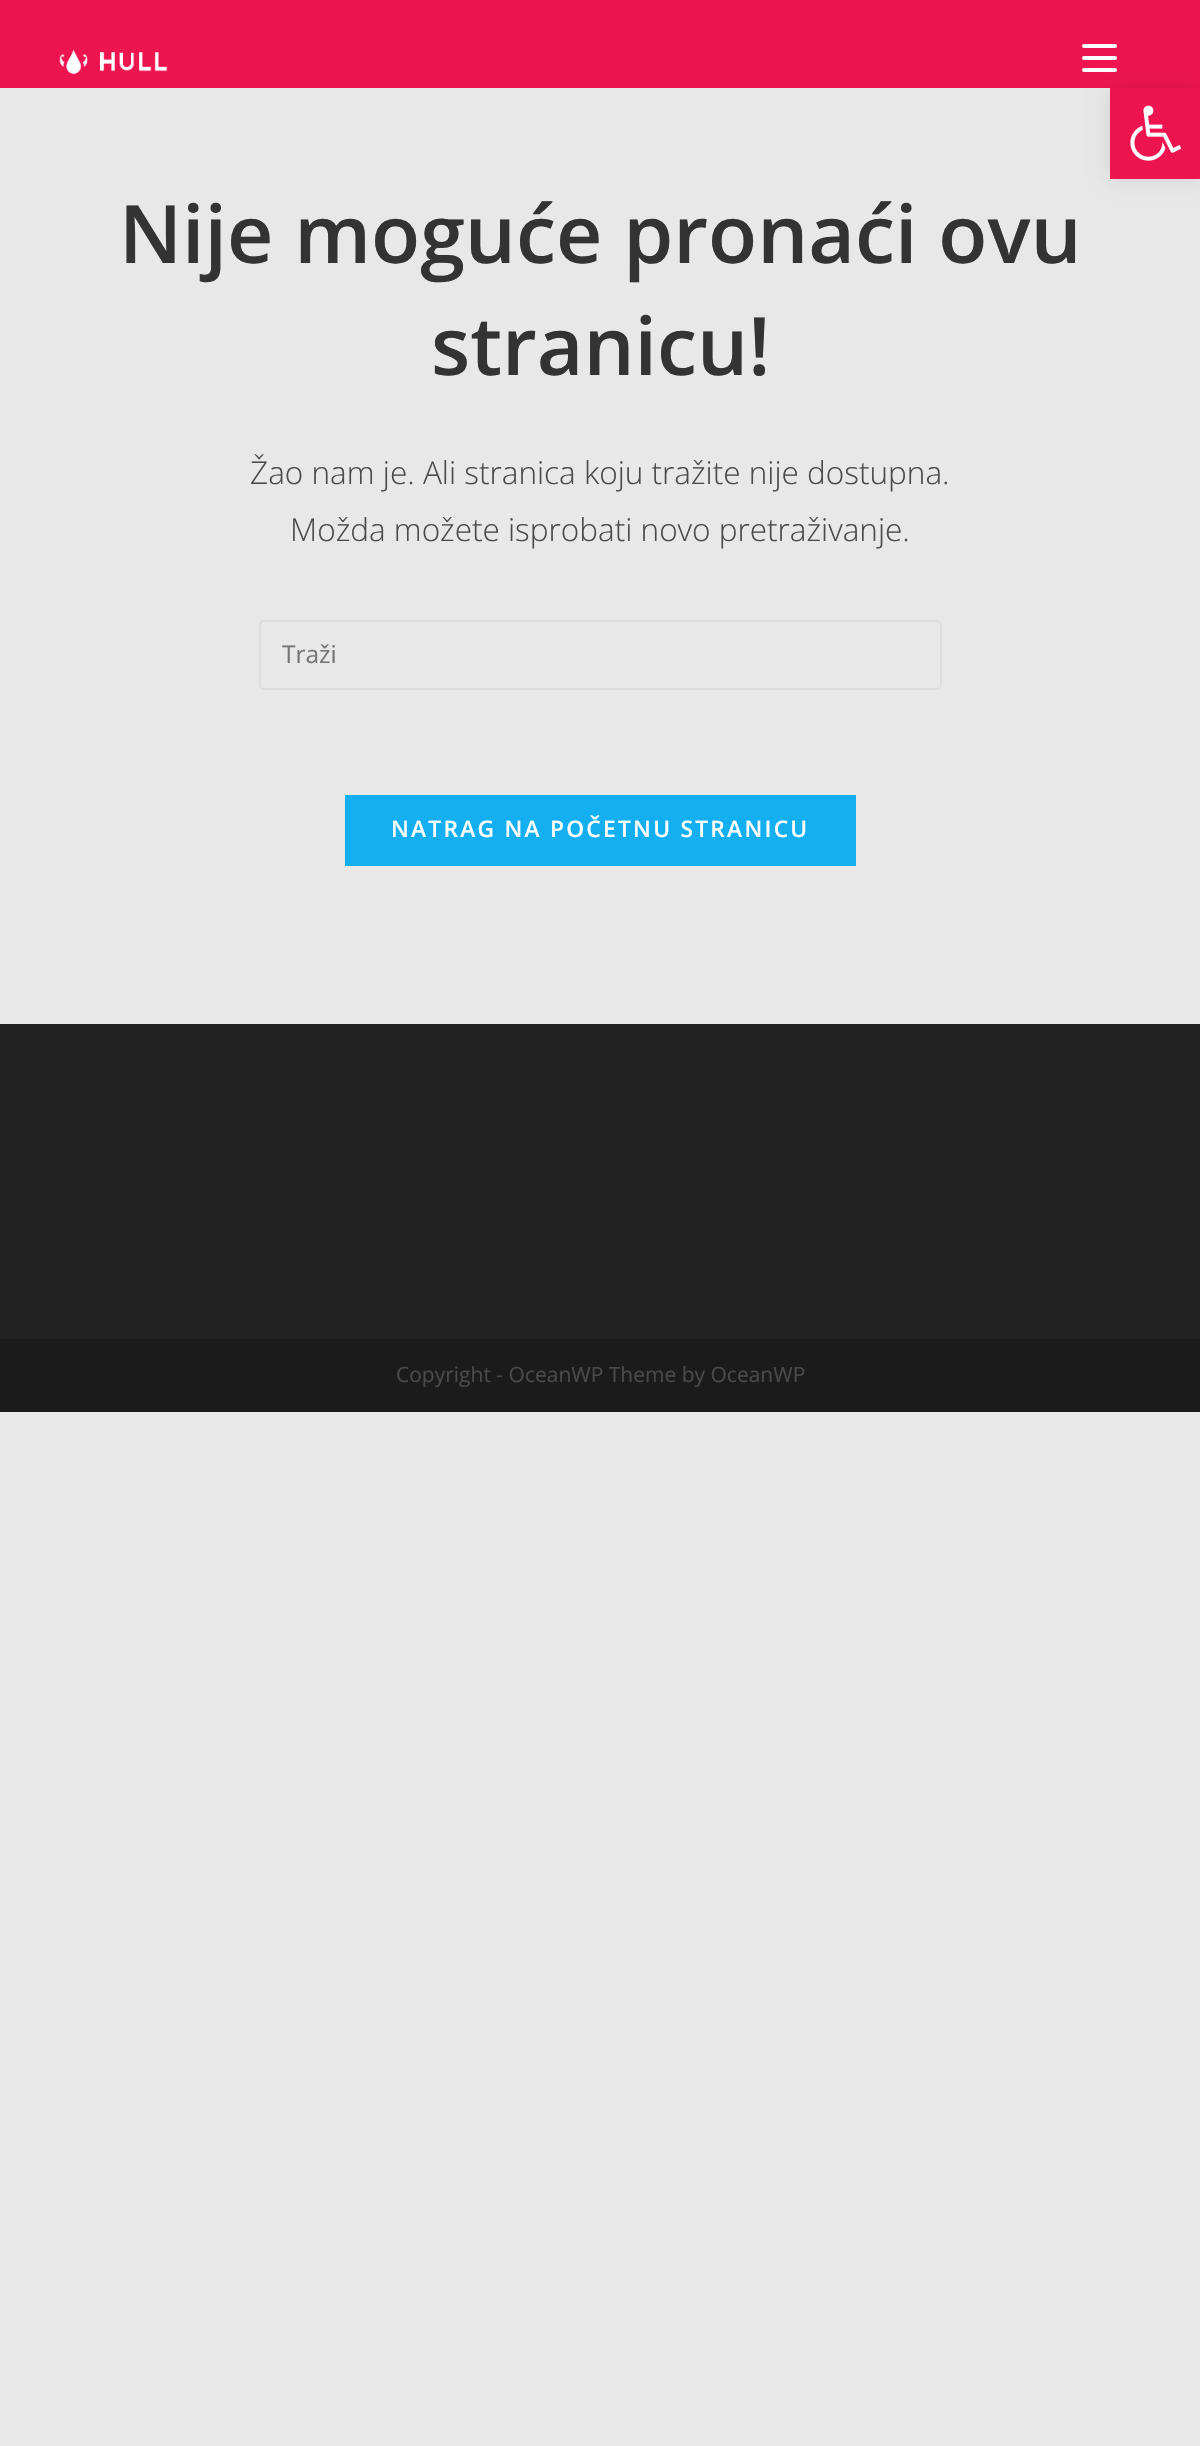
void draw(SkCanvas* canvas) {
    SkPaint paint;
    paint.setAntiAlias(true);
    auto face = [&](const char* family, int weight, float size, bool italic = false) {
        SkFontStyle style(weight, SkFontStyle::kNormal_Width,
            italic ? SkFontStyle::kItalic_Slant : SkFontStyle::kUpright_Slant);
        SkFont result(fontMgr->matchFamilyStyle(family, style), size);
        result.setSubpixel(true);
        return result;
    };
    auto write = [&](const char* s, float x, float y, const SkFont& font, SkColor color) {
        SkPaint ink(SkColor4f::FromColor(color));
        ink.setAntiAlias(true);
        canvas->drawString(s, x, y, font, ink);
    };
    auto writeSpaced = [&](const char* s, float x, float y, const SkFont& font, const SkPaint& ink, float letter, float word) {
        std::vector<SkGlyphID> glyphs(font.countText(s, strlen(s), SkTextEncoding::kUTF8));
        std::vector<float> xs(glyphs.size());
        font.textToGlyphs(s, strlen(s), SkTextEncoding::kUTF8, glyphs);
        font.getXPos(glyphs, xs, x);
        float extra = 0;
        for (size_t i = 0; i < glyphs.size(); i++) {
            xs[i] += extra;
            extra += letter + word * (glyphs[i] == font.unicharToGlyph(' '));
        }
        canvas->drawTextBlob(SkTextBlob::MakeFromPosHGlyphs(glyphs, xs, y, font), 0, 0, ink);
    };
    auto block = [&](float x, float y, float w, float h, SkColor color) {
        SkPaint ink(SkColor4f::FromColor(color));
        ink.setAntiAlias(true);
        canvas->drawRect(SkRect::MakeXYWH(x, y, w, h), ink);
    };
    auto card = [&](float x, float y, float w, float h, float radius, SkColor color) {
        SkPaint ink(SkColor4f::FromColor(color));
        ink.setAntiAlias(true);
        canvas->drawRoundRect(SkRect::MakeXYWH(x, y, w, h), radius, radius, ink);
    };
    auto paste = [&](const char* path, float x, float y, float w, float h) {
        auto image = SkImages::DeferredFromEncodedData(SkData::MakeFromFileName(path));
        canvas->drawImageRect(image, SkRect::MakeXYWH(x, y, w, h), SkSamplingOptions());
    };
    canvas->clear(SkColorSetRGB(232, 232, 232));
    block(0, 0, 1200, 88, SkColorSetRGB(238, 20, 79));
    card(1082, 68, 35, 4, 2, SkColorSetRGB(252, 252, 252));
    paint.setColor(SkColorSetARGB(26, 0, 0, 0));
    paint.setMaskFilter(SkMaskFilter::MakeBlur(kNormal_SkBlurStyle, 9));
    canvas->drawRect(SkRect::MakeXYWH(1110, 88, 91, 91), paint);
    paint.setMaskFilter(nullptr);
    block(1110, 88, 90, 91, SkColorSetRGB(238, 20, 79));
    paste("pic1.png", 1130, 105, 52, 56);
    paste("pic2.png", 59, 49, 109, 26);
    card(1082, 44, 35, 4, 2, SkColorSetRGB(252, 252, 252));
    card(1082, 56, 35, 4, 2, SkColorSetRGB(252, 252, 252));
    auto kFont1 = face("Open Sans", 600, 80.5f);
    write("Nije moguće pronaći ovu", 119, 263, kFont1, SkColorSetRGB(51, 51, 51));
    write("stranicu!", 431, 375, kFont1, SkColorSetRGB(51, 51, 51));
    auto kFont2 = face("Open Sans", 300, 31.5f);
    write("Žao nam je. Ali stranica koju tražite nije dostupna.", 250, 484, kFont2, SkColorSetRGB(74, 74, 74));
    write("Možda možete isprobati novo pretraživanje.", 290, 541, kFont2, SkColorSetRGB(74, 74, 74));
    paint.setStyle(SkPaint::kStroke_Style);
    paint.setStrokeWidth(2);
    paint.setColor(SkColorSetRGB(221, 221, 221));
    canvas->drawRoundRect(SkRect::MakeXYWH(260, 621, 681, 68), 4, 4, paint);
    auto kFont3 = face("Open Sans", 400, 24.5f);
    write("Traži", 282, 663, kFont3, SkColorSetRGB(117, 117, 117));
    block(345, 795, 511, 71, SkColorSetRGB(19, 175, 240));
    auto kFont4 = face("Open Sans", 600, 22.75f);
    paint.setStyle(SkPaint::kFill_Style);
    paint.setColor(SK_ColorWHITE);
    writeSpaced("NATRAG NA POČETNU STRANICU", 391, 837, kFont4, paint, 2.25f, 0);
    block(0, 1024, 1200, 315, SkColorSetRGB(34, 34, 34));
    block(0, 1339, 1200, 73, SkColorSetRGB(27, 27, 27));
    auto kFont5 = face("Open Sans", 400, 21);
    write("Copyright - OceanWP Theme by OceanWP", 396, 1382, kFont5, SkColorSetRGB(74, 74, 74));
}
